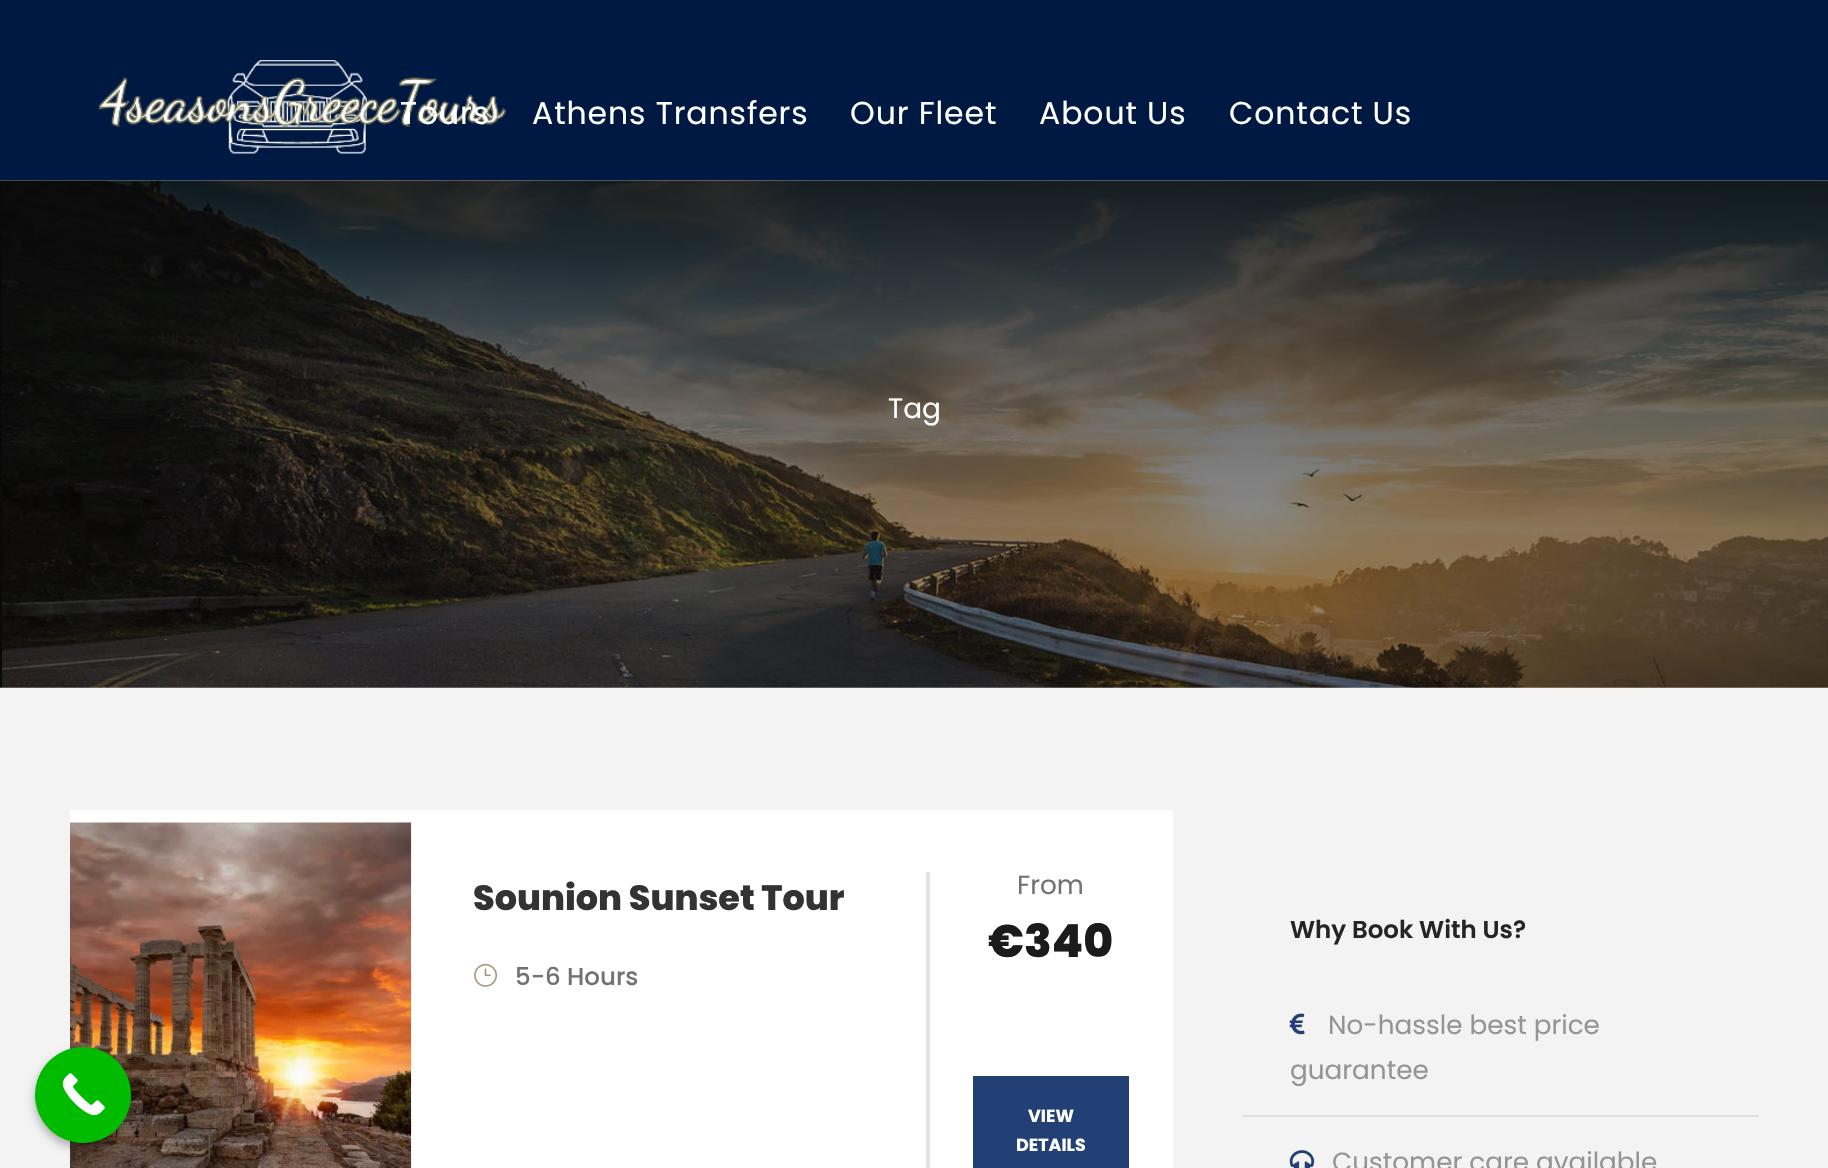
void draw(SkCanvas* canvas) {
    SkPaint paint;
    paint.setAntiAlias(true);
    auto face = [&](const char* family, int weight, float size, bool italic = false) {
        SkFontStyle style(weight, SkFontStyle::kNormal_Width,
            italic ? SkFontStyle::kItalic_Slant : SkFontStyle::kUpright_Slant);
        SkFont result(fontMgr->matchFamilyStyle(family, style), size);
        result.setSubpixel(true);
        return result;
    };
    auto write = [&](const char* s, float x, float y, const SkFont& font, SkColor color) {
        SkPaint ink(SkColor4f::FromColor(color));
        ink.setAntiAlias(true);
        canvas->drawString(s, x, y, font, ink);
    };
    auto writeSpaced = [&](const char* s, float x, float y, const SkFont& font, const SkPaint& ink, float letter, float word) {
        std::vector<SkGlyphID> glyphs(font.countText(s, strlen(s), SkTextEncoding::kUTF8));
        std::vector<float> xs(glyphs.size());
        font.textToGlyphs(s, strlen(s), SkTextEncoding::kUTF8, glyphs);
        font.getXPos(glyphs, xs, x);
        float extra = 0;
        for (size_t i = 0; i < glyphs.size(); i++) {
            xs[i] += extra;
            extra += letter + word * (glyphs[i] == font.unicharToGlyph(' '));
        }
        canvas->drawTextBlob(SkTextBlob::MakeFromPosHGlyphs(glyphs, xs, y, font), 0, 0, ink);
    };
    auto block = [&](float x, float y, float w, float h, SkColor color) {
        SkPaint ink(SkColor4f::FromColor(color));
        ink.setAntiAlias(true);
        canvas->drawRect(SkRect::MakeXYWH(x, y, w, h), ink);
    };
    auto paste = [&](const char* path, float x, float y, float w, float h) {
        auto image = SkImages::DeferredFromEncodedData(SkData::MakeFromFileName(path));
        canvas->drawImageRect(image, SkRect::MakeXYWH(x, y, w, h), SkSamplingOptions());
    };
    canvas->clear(SK_ColorWHITE);
    block(0, 688, 1828, 480, SkColorSetRGB(243, 243, 243));
    block(70, 810, 1103, 358, SK_ColorWHITE);
    paste("pic4.png", 70, 822, 342, 346);
    paint.setColor(SkColorSetARGB(77, 0, 0, 0));
    paint.setMaskFilter(SkMaskFilter::MakeBlur(kNormal_SkBlurStyle, 5));
    canvas->drawRoundRect(SkRect::MakeXYWH(35, 1052, 96, 96), 48, 48, paint);
    paint.setMaskFilter(nullptr);
    paint.setColor(SkColorSetRGB(0, 187, 0));
    canvas->drawCircle(83, 1095, 48, paint);
    paste("pic1.png", 62, 1073, 43, 43);
    block(0, 0, 1828, 180, SkColorSetRGB(0, 25, 66));
    paste("pic2.png", 98, 60, 409, 94);
    auto kFont1 = face("Poppins", 400, 31.5f);
    paint.setColor(SK_ColorWHITE);
    writeSpaced("Tours", 400, 124, kFont1, paint, 0.9f, 0);
    writeSpaced("Athens Transfers", 532, 124, kFont1, paint, 0.9f, 0);
    writeSpaced("Our Fleet", 850, 124, kFont1, paint, 0.9f, 0);
    writeSpaced("About Us", 1039, 124, kFont1, paint, 0.9f, 0);
    writeSpaced("Contact Us", 1229, 124, kFont1, paint, 0.9f, 0);
    paste("pic3.png", 0, 180, 1828, 508);
    auto kFont2 = face("Poppins", 400, 28);
    write("Tag", 888, 418, kFont2, SK_ColorWHITE);
    auto kFont3 = face("Poppins", 800, 35);
    write("Sounion Sunset Tour", 473, 910, kFont3, SkColorSetRGB(51, 51, 51));
    paste("pic5.png", 474, 963, 23, 24);
    auto kFont4 = face("Poppins", 500, 24.5f);
    write("5-6 Hours", 515, 985, kFont4, SkColorSetRGB(114, 114, 114));
    block(926, 872, 4, 296, SkColorSetRGB(225, 225, 225));
    auto kFont5 = face("Poppins", 400, 26.25f);
    write("From", 1017, 894, kFont5, SkColorSetRGB(114, 114, 114));
    auto kFont6 = face("Poppins", 800, 45.5f);
    write("€340", 988, 957, kFont6, SkColorSetRGB(27, 27, 27));
    block(973, 1076, 156, 92, SkColorSetRGB(35, 64, 118));
    auto kFont7 = face("Poppins", 700, 17.5f);
    write("VIEW", 1028, 1122, kFont7, SK_ColorWHITE);
    write("DETAILS", 1016, 1151, kFont7, SK_ColorWHITE);
    auto kFont8 = face("Poppins", 600, 24.5f);
    write("Why Book With Us?", 1290, 938, kFont8, SkColorSetRGB(37, 37, 37));
    paste("pic6.png", 1289, 1013, 16, 22);
    write("No-hassle best price", 1328, 1034, kFont5, SkColorSetRGB(148, 148, 148));
    write("guarantee", 1290, 1079, kFont5, SkColorSetRGB(148, 148, 148));
    block(1243, 1115, 516, 2, SkColorSetRGB(225, 225, 225));
    paste("pic7.png", 1289, 1150, 26, 18);
    write("Customer care available", 1332, 1171, kFont5, SkColorSetRGB(148, 148, 148));
}
